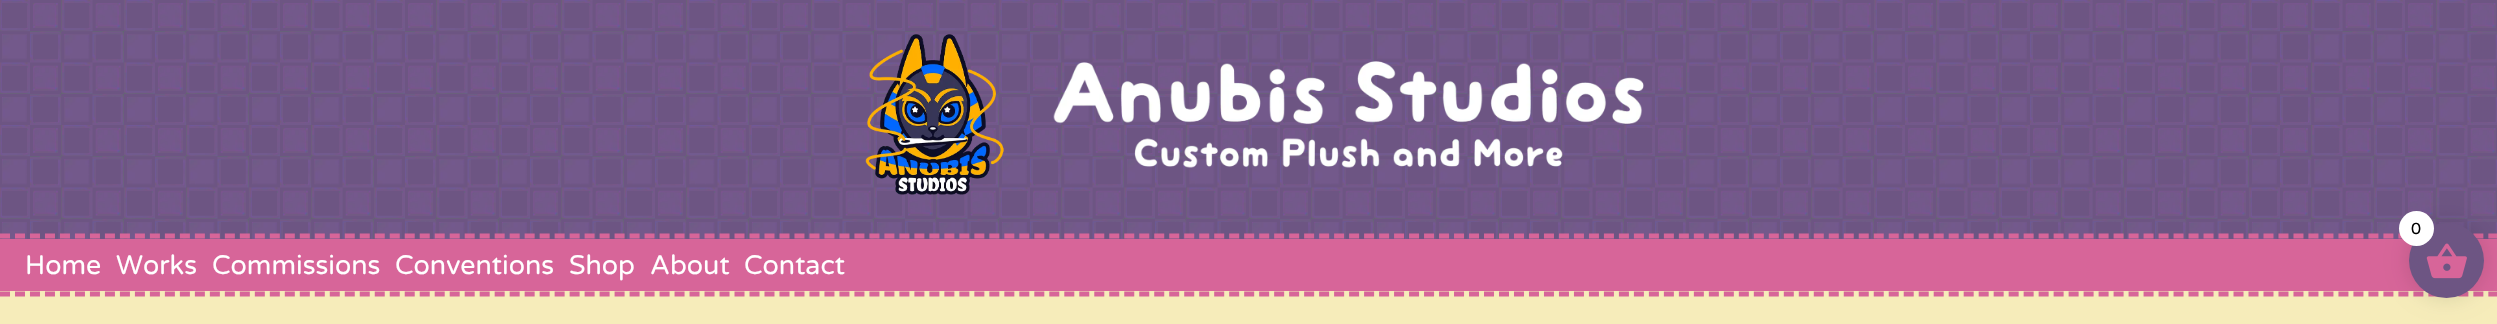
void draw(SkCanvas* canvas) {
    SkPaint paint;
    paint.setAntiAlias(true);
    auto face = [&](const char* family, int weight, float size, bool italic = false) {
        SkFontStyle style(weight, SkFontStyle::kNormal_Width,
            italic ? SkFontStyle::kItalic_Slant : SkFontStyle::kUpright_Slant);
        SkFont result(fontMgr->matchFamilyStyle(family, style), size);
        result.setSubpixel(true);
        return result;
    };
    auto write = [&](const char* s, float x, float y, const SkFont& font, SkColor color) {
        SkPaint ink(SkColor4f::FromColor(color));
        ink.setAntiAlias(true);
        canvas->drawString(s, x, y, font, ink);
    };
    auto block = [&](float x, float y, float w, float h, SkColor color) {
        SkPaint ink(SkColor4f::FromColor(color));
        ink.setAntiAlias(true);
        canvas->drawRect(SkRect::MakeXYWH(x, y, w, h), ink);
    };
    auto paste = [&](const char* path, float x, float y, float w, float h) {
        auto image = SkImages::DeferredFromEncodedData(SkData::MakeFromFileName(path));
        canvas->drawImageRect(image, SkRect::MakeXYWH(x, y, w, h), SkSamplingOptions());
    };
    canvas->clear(SkColorSetRGB(109, 85, 131));
    paste("pic1.png", 0, 0, 2497, 239);
    paint.setStyle(SkPaint::kStroke_Style);
    paint.setStrokeWidth(5);
    paint.setColor(SkColorSetRGB(215, 101, 153));
    paint.setPathEffect(SkDashPathEffect::Make({{10, 4.99f}}, 0));
    canvas->drawPath(SkPathBuilder().moveTo(0, 236).lineTo(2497.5f, 236).detach(), paint);
    paint.setPathEffect(nullptr);
    paste("pic2.png", 865, 34, 139, 161);
    paste("pic3.png", 1053, 61, 591, 107);
    block(0, 239, 2497, 52, SkColorSetRGB(215, 101, 153));
    block(0, 291, 2497, 33, SkColorSetRGB(246, 236, 186));
    paint.setPathEffect(SkDashPathEffect::Make({{10, 4.99f}}, 0));
    canvas->drawPath(SkPathBuilder().moveTo(0, 294).lineTo(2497.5f, 294).detach(), paint);
    paint.setPathEffect(nullptr);
    paint.setStyle(SkPaint::kFill_Style);
    paint.setColor(SkColorSetARGB(26, 0, 0, 0));
    paint.setMaskFilter(SkMaskFilter::MakeBlur(kNormal_SkBlurStyle, 9.5f));
    canvas->drawRoundRect(SkRect::MakeXYWH(2406, 220, 80, 80), 40, 40, paint);
    paint.setMaskFilter(nullptr);
    paint.setColor(SkColorSetRGB(109, 85, 131));
    canvas->drawCircle(2446.5f, 260.5f, 37.5f, paint);
    paste("pic4.png", 2426, 243, 41, 36);
    paint.setColor(SK_ColorWHITE);
    canvas->drawCircle(2416.5f, 228.5f, 17.5f, paint);
    auto kFont1 = face("Varela Round", 400, 16);
    write("0", 2411, 234, kFont1, SK_ColorBLACK);
    auto kFont2 = face("Varela Round", 400, 26.75f);
    write("Home", 25, 274, kFont2, SK_ColorWHITE);
    write("Works", 116, 274, kFont2, SK_ColorWHITE);
    write("Commissions", 212, 274, kFont2, SK_ColorWHITE);
    write("Conventions", 395, 274, kFont2, SK_ColorWHITE);
    write("Shop", 569, 274, kFont2, SK_ColorWHITE);
    write("About", 650, 274, kFont2, SK_ColorWHITE);
    write("Contact", 744, 274, kFont2, SK_ColorWHITE);
}
